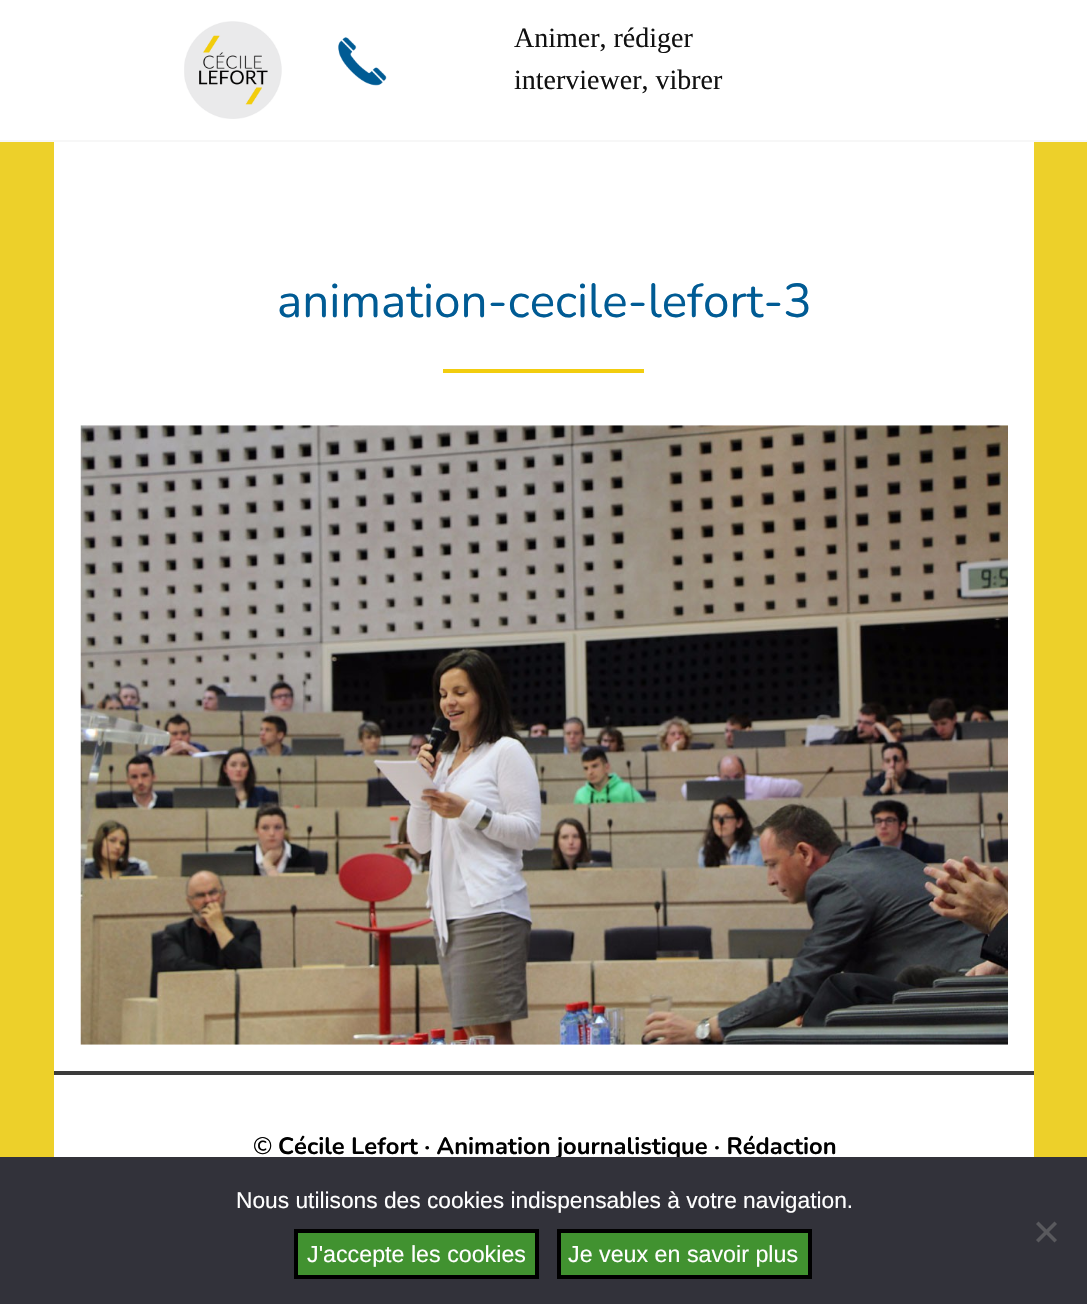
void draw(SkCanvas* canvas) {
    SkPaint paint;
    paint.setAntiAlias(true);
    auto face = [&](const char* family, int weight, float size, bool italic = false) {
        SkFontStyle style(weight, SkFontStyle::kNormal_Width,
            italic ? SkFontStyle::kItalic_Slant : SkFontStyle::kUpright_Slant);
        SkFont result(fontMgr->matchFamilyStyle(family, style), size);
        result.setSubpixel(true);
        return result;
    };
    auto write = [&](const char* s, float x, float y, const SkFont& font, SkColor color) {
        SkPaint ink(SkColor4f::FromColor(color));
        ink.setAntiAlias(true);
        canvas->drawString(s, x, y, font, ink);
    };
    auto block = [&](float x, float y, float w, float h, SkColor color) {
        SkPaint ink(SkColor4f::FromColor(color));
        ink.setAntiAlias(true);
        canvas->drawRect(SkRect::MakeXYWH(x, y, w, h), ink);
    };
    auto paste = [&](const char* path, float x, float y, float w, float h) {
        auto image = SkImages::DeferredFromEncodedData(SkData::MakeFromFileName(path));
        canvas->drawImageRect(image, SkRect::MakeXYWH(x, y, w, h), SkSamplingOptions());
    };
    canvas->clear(SkColorSetRGB(237, 208, 42));
    block(0, 0, 1087, 140, SK_ColorWHITE);
    block(0, 140, 1087, 2, SkColorSetRGB(247, 247, 247));
    paste("pic1.png", 184, 21, 98, 98);
    paste("pic2.png", 338, 37, 49, 49);
    auto kFont1 = face("Liberation Serif", 400, 28);
    write("Animer, rédiger", 514, 47, kFont1, SkColorSetRGB(17, 17, 17));
    write("interviewer, vibrer", 514, 89, kFont1, SkColorSetRGB(17, 17, 17));
    block(54, 142, 980, 1015, SK_ColorWHITE);
    auto kFont2 = face("Nunito", 400, 47.6f);
    write("animation-cecile-lefort-3", 277, 317, kFont2, SkColorSetRGB(0, 91, 148));
    block(443, 369, 201, 4, SkColorSetRGB(242, 205, 15));
    paste("pic3.png", 80, 425, 928, 620);
    block(54, 1071, 980, 4, SkColorSetRGB(59, 59, 59));
    auto kFont3 = face("Nunito", 400, 23.7f);
    write("©", 253, 1154, kFont3, SK_ColorBLACK);
    auto kFont4 = face("Nunito", 700, 23.7f);
    write("Cécile Lefort · Animation journalistique · Rédaction", 278, 1154, kFont4, SK_ColorBLACK);
    block(0, 1157, 1087, 147, SkColorSetRGB(50, 50, 58));
    auto kFont5 = face("Liberation Sans", 400, 22.75f);
    write("Nous utilisons des cookies indispensables à votre navigation.", 236, 1208, kFont5, SK_ColorWHITE);
    paint.setColor(SkColorSetRGB(89, 89, 93));
    canvas->drawPath(SkPathBuilder().moveTo(1054.5f, 1221.5f).lineTo(1057, 1224).lineTo(1038.5f, 1242.5f).lineTo(1036, 1240).close().detach(), paint);
    canvas->drawPath(SkPathBuilder().moveTo(1036, 1224).lineTo(1038.5f, 1221.5f).lineTo(1057, 1240).lineTo(1054.5f, 1242.5f).close().detach(), paint);
    paint.setColor(SkColorSetRGB(65, 146, 48));
    canvas->drawRect(SkRect::MakeXYWH(296, 1231, 241, 46), paint);
    paint.setStyle(SkPaint::kStroke_Style);
    paint.setStrokeWidth(4);
    paint.setColor(SK_ColorBLACK);
    canvas->drawRect(SkRect::MakeXYWH(296, 1231, 241, 46), paint);
    auto kFont6 = face("Liberation Sans", 400, 23.25f);
    write("J'accepte les cookies", 307, 1262, kFont6, SK_ColorWHITE);
    paint.setStyle(SkPaint::kFill_Style);
    paint.setColor(SkColorSetRGB(65, 146, 48));
    canvas->drawRect(SkRect::MakeXYWH(559, 1231, 251, 46), paint);
    paint.setStyle(SkPaint::kStroke_Style);
    paint.setColor(SK_ColorBLACK);
    canvas->drawRect(SkRect::MakeXYWH(559, 1231, 251, 46), paint);
    write("Je veux en savoir plus", 568, 1262, kFont6, SK_ColorWHITE);
}
